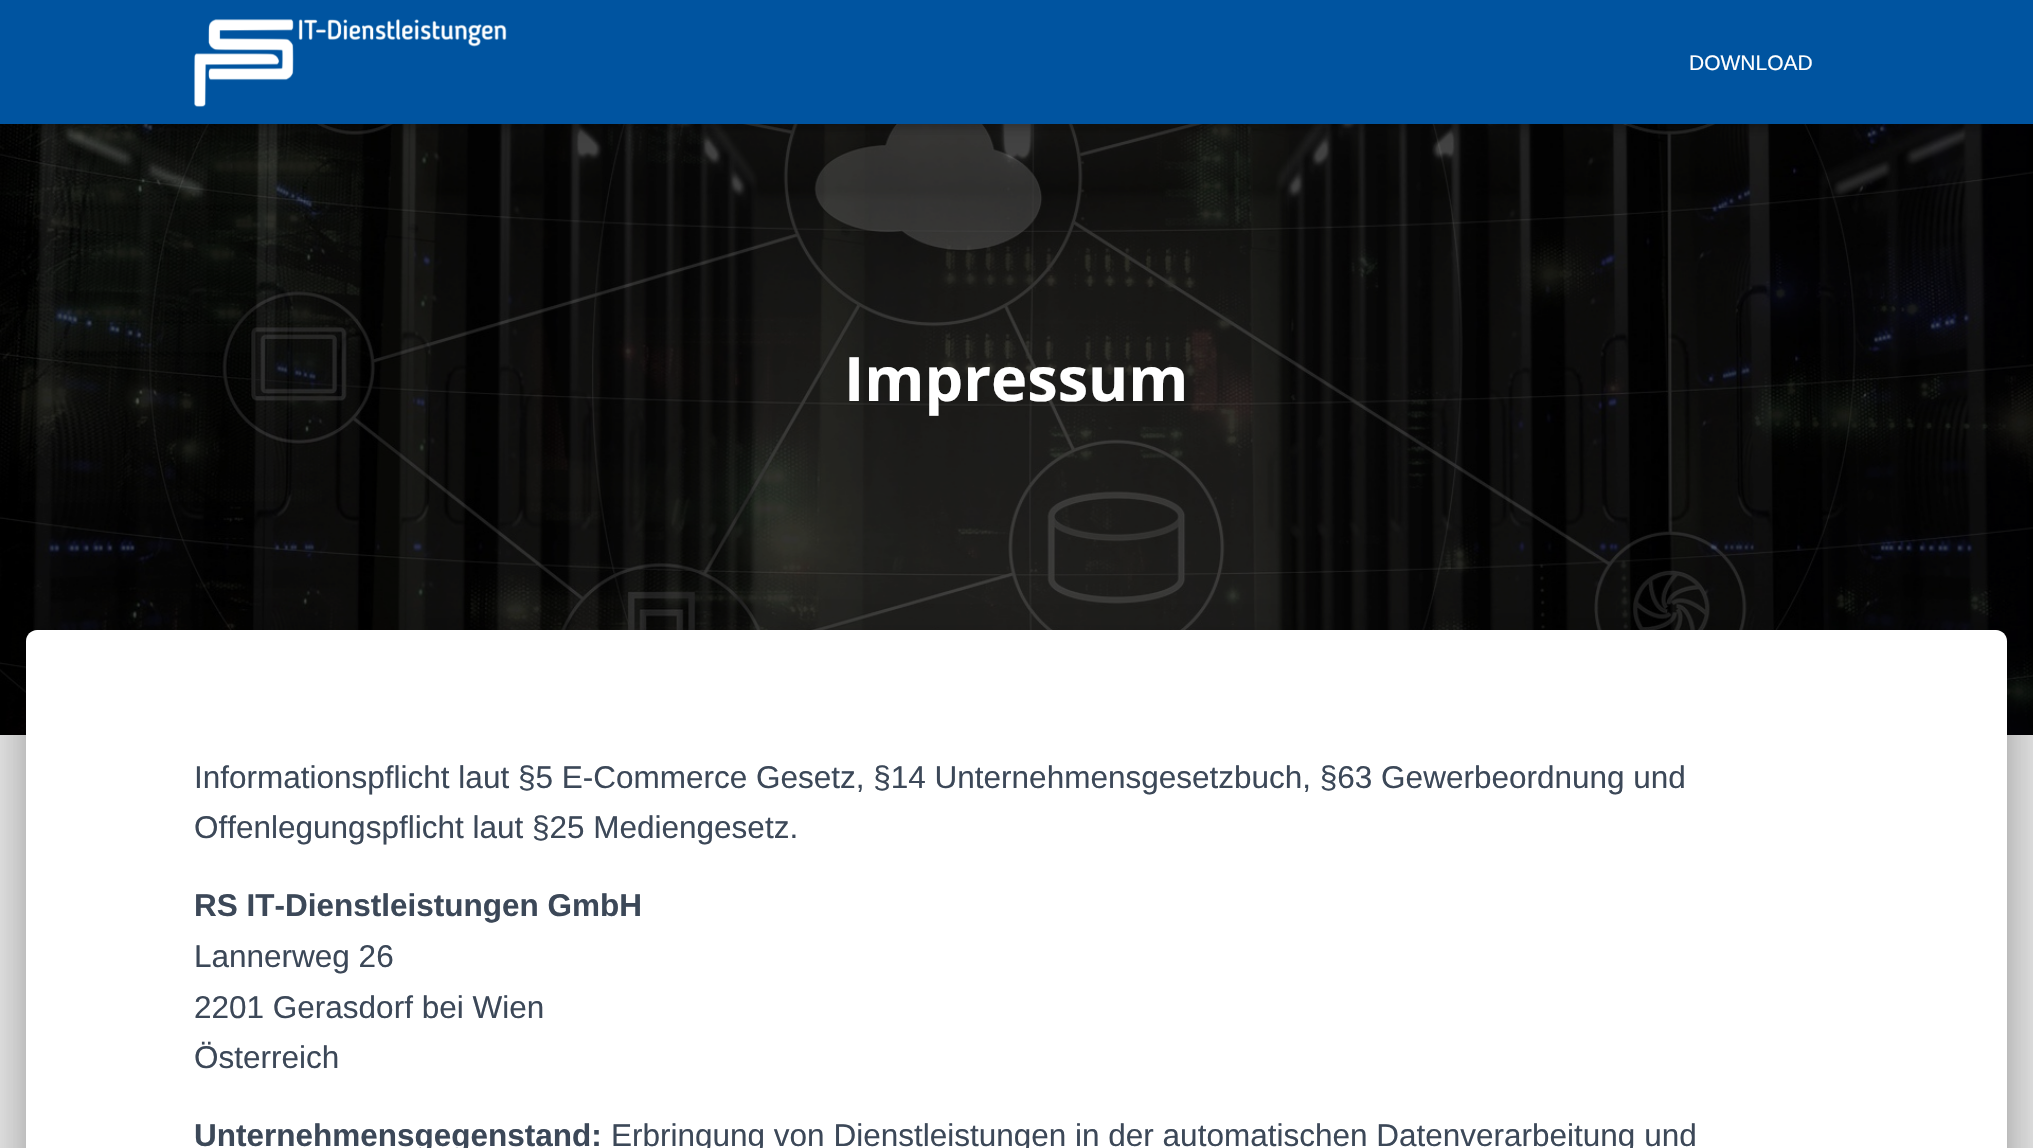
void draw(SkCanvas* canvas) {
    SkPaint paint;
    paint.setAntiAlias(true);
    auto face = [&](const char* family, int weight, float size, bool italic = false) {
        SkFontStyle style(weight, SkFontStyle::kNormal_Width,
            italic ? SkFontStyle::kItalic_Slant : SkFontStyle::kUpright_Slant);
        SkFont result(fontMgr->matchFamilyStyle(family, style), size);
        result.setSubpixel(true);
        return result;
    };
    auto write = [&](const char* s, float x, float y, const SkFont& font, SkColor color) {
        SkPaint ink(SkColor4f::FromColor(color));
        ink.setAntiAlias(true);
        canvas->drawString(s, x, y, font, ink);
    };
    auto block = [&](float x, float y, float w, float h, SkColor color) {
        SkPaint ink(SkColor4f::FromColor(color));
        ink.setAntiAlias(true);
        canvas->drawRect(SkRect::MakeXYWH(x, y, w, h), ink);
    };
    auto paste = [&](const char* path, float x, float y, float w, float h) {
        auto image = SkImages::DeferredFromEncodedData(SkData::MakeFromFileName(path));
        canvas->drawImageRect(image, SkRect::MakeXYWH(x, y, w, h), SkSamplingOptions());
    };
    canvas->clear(SkColorSetRGB(229, 229, 229));
    paste("pic2.png", 0, 124, 2033, 611);
    paint.setColor(SkColorSetARGB(26, 0, 0, 0));
    paint.setMaskFilter(SkMaskFilter::MakeBlur(kNormal_SkBlurStyle, 4.5f));
    canvas->drawRect(SkRect::MakeXYWH(4, 11, 2026, 117), paint);
    paint.setMaskFilter(nullptr);
    paint.setColor(SkColorSetARGB(31, 0, 0, 0));
    paint.setMaskFilter(SkMaskFilter::MakeBlur(kNormal_SkBlurStyle, 9));
    canvas->drawRect(SkRect::MakeXYWH(0, 2, 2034, 124), paint);
    paint.setMaskFilter(nullptr);
    paint.setColor(SkColorSetARGB(107, 0, 0, 0));
    paint.setMaskFilter(SkMaskFilter::MakeBlur(kNormal_SkBlurStyle, 9));
    canvas->drawRect(SkRect::MakeXYWH(11, 12, 2012, 104), paint);
    paint.setMaskFilter(nullptr);
    block(0, 0, 2033, 124, SkColorSetRGB(0, 84, 160));
    paste("pic1.png", 194, 19, 313, 88);
    auto kFont1 = face("Liberation Sans", 400, 21);
    write("DOWNLOAD", 1689, 70, kFont1, SK_ColorWHITE);
    auto kFont2 = face("Open Sans", 700, 61.25f);
    write("Impressum", 844, 401, kFont2, SK_ColorWHITE);
    paint.setColor(SkColorSetARGB(51, 0, 0, 0));
    paint.setMaskFilter(SkMaskFilter::MakeBlur(kNormal_SkBlurStyle, 9));
    canvas->drawRoundRect(SkRect::MakeXYWH(35, 653, 1964, 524), 2, 2, paint);
    paint.setMaskFilter(nullptr);
    paint.setColor(SkColorSetARGB(31, 0, 0, 0));
    paint.setMaskFilter(SkMaskFilter::MakeBlur(kNormal_SkBlurStyle, 26));
    canvas->drawRoundRect(SkRect::MakeXYWH(18, 632, 1998, 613), 19, 19, paint);
    paint.setMaskFilter(nullptr);
    paint.setColor(SkColorSetARGB(36, 0, 0, 0));
    paint.setMaskFilter(SkMaskFilter::MakeBlur(kNormal_SkBlurStyle, 21));
    canvas->drawRoundRect(SkRect::MakeXYWH(23, 655, 1988, 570), 14, 14, paint);
    paint.setMaskFilter(nullptr);
    paint.setColor(SK_ColorWHITE);
    canvas->drawPath(SkPathBuilder().moveTo(37, 630).lineTo(1996, 630).cubicTo(2002, 630, 2007, 635, 2007, 641).lineTo(2007, 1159).lineTo(26, 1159).lineTo(26, 641).cubicTo(26, 635, 31, 630, 37, 630).close().detach(), paint);
    auto kFont3 = face("Liberation Sans", 400, 31.5f);
    write("Informationspflicht laut §5 E-Commerce Gesetz, §14 Unternehmensgesetzbuch, §63 Gewerbeordnung und", 194, 788, kFont3, SkColorSetRGB(60, 72, 88));
    write("Offenlegungspflicht laut §25 Mediengesetz.", 194, 838, kFont3, SkColorSetRGB(60, 72, 88));
    auto kFont4 = face("Liberation Sans", 700, 31.5f);
    write("RS IT-Dienstleistungen GmbH", 194, 916, kFont4, SkColorSetRGB(60, 72, 88));
    write("Lannerweg 26", 194, 967, kFont3, SkColorSetRGB(60, 72, 88));
    write("2201 Gerasdorf bei Wien", 194, 1018, kFont3, SkColorSetRGB(60, 72, 88));
    write("Österreich", 194, 1068, kFont3, SkColorSetRGB(60, 72, 88));
    write("Unternehmensgegenstand:", 194, 1146, kFont4, SkColorSetRGB(60, 72, 88));
    write("Erbringung von Dienstleistungen in der automatischen Datenverarbeitung und", 611, 1146, kFont3, SkColorSetRGB(60, 72, 88));
}
